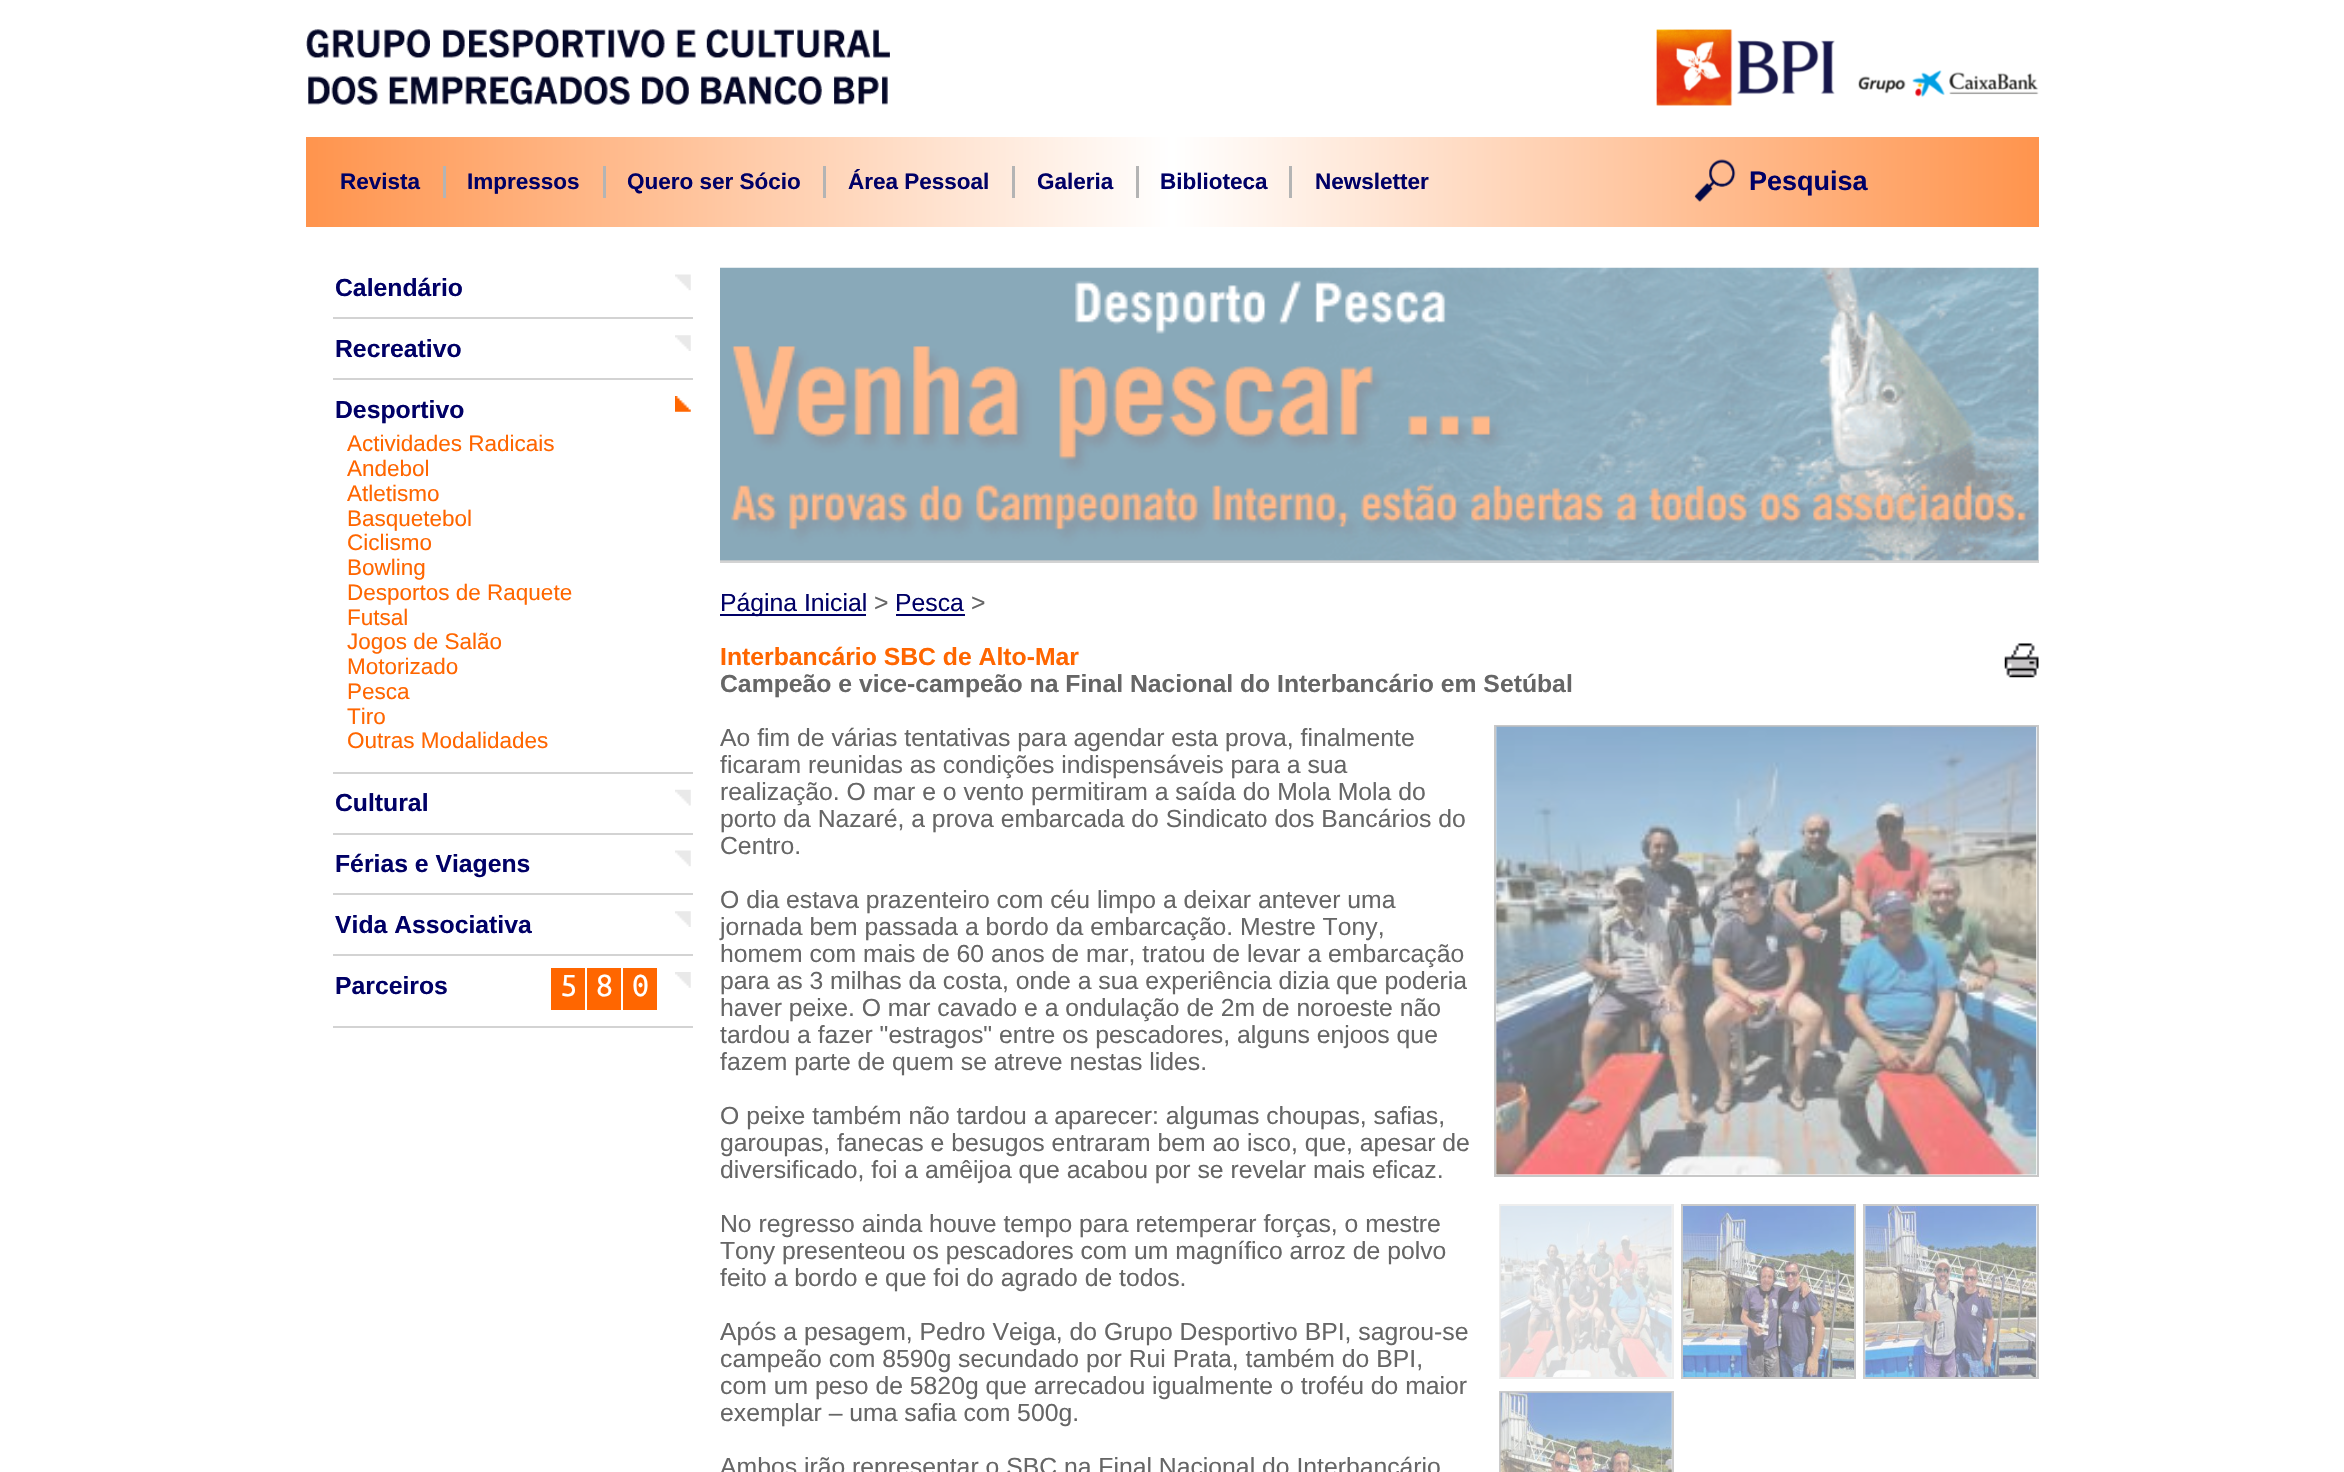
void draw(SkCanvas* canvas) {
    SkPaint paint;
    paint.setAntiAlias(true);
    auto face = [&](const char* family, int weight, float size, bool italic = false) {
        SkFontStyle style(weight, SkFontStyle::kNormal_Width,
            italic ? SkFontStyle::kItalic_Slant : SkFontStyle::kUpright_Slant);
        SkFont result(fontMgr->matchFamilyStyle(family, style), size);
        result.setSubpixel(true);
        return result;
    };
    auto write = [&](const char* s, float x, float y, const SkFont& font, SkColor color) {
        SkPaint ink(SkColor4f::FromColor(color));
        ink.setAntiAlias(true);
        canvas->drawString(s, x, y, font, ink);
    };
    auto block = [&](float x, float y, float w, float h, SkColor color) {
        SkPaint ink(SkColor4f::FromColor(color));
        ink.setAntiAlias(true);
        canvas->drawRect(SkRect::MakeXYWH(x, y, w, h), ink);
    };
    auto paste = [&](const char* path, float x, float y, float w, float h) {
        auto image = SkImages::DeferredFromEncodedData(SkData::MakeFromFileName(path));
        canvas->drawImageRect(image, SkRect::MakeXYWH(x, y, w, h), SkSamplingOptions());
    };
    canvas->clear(SK_ColorWHITE);
    paste("pic1.png", 306, 29, 584, 76);
    paste("pic2.png", 1656, 29, 383, 77);
    {
        const SkColor colors[] = {SkColorSetRGB(255, 148, 77), SK_ColorWHITE, SkColorSetRGB(255, 148, 77)};
        const float stops[] = {0, 0.5f, 1};
        const SkPoint ends[] = {{306, 182}, {2039, 182}};
        paint.setShader(SkGradientShader::MakeLinear(ends, colors, stops, 3, SkTileMode::kClamp));
        paint.setAlpha(255);
    }
    canvas->drawRect(SkRect::MakeXYWH(306, 137, 1733, 90), paint);
    auto kFont1 = face("Liberation Sans", 700, 22.5f);
    write("Revista", 340, 189, kFont1, SkColorSetRGB(0, 0, 102));
    block(443, 166, 3, 32, SkColorSetRGB(180, 180, 180));
    write("Impressos", 467, 189, kFont1, SkColorSetRGB(0, 0, 102));
    block(603, 166, 3, 32, SkColorSetRGB(180, 180, 180));
    write("Quero ser Sócio", 627, 189, kFont1, SkColorSetRGB(0, 0, 102));
    block(823, 166, 3, 32, SkColorSetRGB(180, 180, 180));
    write("Área Pessoal", 848, 189, kFont1, SkColorSetRGB(0, 0, 102));
    block(1012, 166, 3, 32, SkColorSetRGB(180, 180, 180));
    write("Galeria", 1037, 189, kFont1, SkColorSetRGB(0, 0, 102));
    block(1136, 166, 3, 32, SkColorSetRGB(180, 180, 180));
    write("Biblioteca", 1160, 189, kFont1, SkColorSetRGB(0, 0, 102));
    block(1289, 166, 3, 32, SkColorSetRGB(180, 180, 180));
    write("Newsletter", 1315, 189, kFont1, SkColorSetRGB(0, 0, 102));
    paste("pic3.png", 1694, 159, 42, 43);
    auto kFont2 = face("Liberation Sans", 700, 27);
    write("Pesquisa", 1749, 190, kFont2, SkColorSetRGB(0, 0, 102));
    auto kFont3 = face("Liberation Sans", 700, 24.75f);
    write("Calendário", 335, 296, kFont3, SkColorSetRGB(0, 0, 102));
    paste("pic4.png", 675, 274, 16, 17);
    block(333, 317, 360, 2, SkColorSetRGB(211, 211, 211));
    write("Recreativo", 335, 357, kFont3, SkColorSetRGB(0, 0, 102));
    paste("pic5.png", 675, 335, 16, 16);
    block(333, 378, 360, 2, SkColorSetRGB(211, 211, 211));
    write("Desportivo", 335, 418, kFont3, SkColorSetRGB(0, 0, 102));
    paste("pic6.png", 675, 396, 16, 16);
    auto kFont4 = face("Liberation Sans", 400, 22.5f);
    write("Actividades Radicais", 347, 451, kFont4, SkColorSetRGB(255, 102, 0));
    write("Andebol", 347, 476, kFont4, SkColorSetRGB(255, 102, 0));
    write("Atletismo", 347, 501, kFont4, SkColorSetRGB(255, 102, 0));
    write("Basquetebol", 347, 526, kFont4, SkColorSetRGB(255, 102, 0));
    write("Ciclismo", 347, 550, kFont4, SkColorSetRGB(255, 102, 0));
    write("Bowling", 347, 575, kFont4, SkColorSetRGB(255, 102, 0));
    write("Desportos de Raquete", 347, 600, kFont4, SkColorSetRGB(255, 102, 0));
    write("Futsal", 347, 625, kFont4, SkColorSetRGB(255, 102, 0));
    write("Jogos de Salão", 347, 649, kFont4, SkColorSetRGB(255, 102, 0));
    write("Motorizado", 347, 674, kFont4, SkColorSetRGB(255, 102, 0));
    write("Pesca", 347, 699, kFont4, SkColorSetRGB(255, 102, 0));
    write("Tiro", 347, 724, kFont4, SkColorSetRGB(255, 102, 0));
    write("Outras Modalidades", 347, 748, kFont4, SkColorSetRGB(255, 102, 0));
    block(333, 772, 360, 2, SkColorSetRGB(211, 211, 211));
    write("Cultural", 335, 811, kFont3, SkColorSetRGB(0, 0, 102));
    paste("pic7.png", 675, 789, 16, 17);
    block(333, 833, 360, 2, SkColorSetRGB(211, 211, 211));
    write("Férias e Viagens", 335, 872, kFont3, SkColorSetRGB(0, 0, 102));
    paste("pic4.png", 675, 850, 16, 17);
    block(333, 893, 360, 2, SkColorSetRGB(211, 211, 211));
    write("Vida Associativa", 335, 933, kFont3, SkColorSetRGB(0, 0, 102));
    paste("pic5.png", 675, 911, 16, 16);
    block(333, 954, 360, 2, SkColorSetRGB(211, 211, 211));
    write("Parceiros", 335, 994, kFont3, SkColorSetRGB(0, 0, 102));
    block(551, 968, 34, 42, SkColorSetRGB(255, 102, 0));
    auto kFont5 = face("Ubuntu Mono", 400, 34);
    write("5", 560, 996, kFont5, SK_ColorWHITE);
    block(587, 968, 34, 42, SkColorSetRGB(255, 102, 0));
    write("8", 596, 996, kFont5, SK_ColorWHITE);
    block(623, 968, 34, 42, SkColorSetRGB(255, 102, 0));
    write("0", 632, 996, kFont5, SK_ColorWHITE);
    paste("pic8.png", 675, 972, 16, 16);
    block(333, 1026, 360, 2, SkColorSetRGB(211, 211, 211));
    block(720, 560, 1319, 3, SkColorSetRGB(211, 211, 211));
    paste("pic9.png", 720, 267, 1319, 294);
    block(720, 614, 146, 2, SkColorSetRGB(0, 0, 102));
    auto kFont6 = face("Liberation Sans", 400, 24.75f);
    write("Página Inicial", 720, 611, kFont6, SkColorSetRGB(0, 0, 102));
    write(">", 874, 611, kFont6, SkColorSetRGB(102, 102, 102));
    write("Pesca", 895, 611, kFont6, SkColorSetRGB(0, 0, 102));
    block(896, 614, 69, 2, SkColorSetRGB(0, 0, 102));
    write(">", 971, 611, kFont6, SkColorSetRGB(102, 102, 102));
    write("Interbancário SBC de Alto-Mar", 720, 665, kFont3, SkColorSetRGB(255, 102, 0));
    paste("pic10.png", 2004, 643, 35, 35);
    write("Campeão e vice-campeão na Final Nacional do Interbancário em Setúbal", 720, 692, kFont3, SkColorSetRGB(102, 102, 102));
    write("Ao fim de várias tentativas para agendar esta prova, finalmente", 720, 746, kFont6, SkColorSetRGB(102, 102, 102));
    write("ficaram reunidas as condições indispensáveis para a sua", 720, 773, kFont6, SkColorSetRGB(102, 102, 102));
    write("realização. O mar e o vento permitiram a saída do Mola Mola do", 720, 800, kFont6, SkColorSetRGB(102, 102, 102));
    write("porto da Nazaré, a prova embarcada do Sindicato dos Bancários do", 720, 827, kFont6, SkColorSetRGB(102, 102, 102));
    write("Centro.", 720, 854, kFont6, SkColorSetRGB(102, 102, 102));
    write("O dia estava prazenteiro com céu limpo a deixar antever uma", 720, 908, kFont6, SkColorSetRGB(102, 102, 102));
    write("jornada bem passada a bordo da embarcação. Mestre Tony,", 720, 935, kFont6, SkColorSetRGB(102, 102, 102));
    write("homem com mais de 60 anos de mar, tratou de levar a embarcação", 720, 962, kFont6, SkColorSetRGB(102, 102, 102));
    write("para as 3 milhas da costa, onde a sua experiência dizia que poderia", 720, 989, kFont6, SkColorSetRGB(102, 102, 102));
    write("haver peixe. O mar cavado e a ondulação de 2m de noroeste não", 720, 1016, kFont6, SkColorSetRGB(102, 102, 102));
    write("tardou a fazer \"estragos\" entre os pescadores, alguns enjoos que", 720, 1043, kFont6, SkColorSetRGB(102, 102, 102));
    write("fazem parte de quem se atreve nestas lides.", 720, 1070, kFont6, SkColorSetRGB(102, 102, 102));
    write("O peixe também não tardou a aparecer: algumas choupas, safias,", 720, 1124, kFont6, SkColorSetRGB(102, 102, 102));
    write("garoupas, fanecas e besugos entraram bem ao isco, que, apesar de", 720, 1151, kFont6, SkColorSetRGB(102, 102, 102));
    write("diversificado, foi a amêijoa que acabou por se revelar mais eficaz.", 720, 1178, kFont6, SkColorSetRGB(102, 102, 102));
    write("No regresso ainda houve tempo para retemperar forças, o mestre", 720, 1232, kFont6, SkColorSetRGB(102, 102, 102));
    write("Tony presenteou os pescadores com um magnífico arroz de polvo", 720, 1259, kFont6, SkColorSetRGB(102, 102, 102));
    write("feito a bordo e que foi do agrado de todos.", 720, 1286, kFont6, SkColorSetRGB(102, 102, 102));
    write("Após a pesagem, Pedro Veiga, do Grupo Desportivo BPI, sagrou-se", 720, 1340, kFont6, SkColorSetRGB(102, 102, 102));
    write("campeão com 8590g secundado por Rui Prata, também do BPI,", 720, 1367, kFont6, SkColorSetRGB(102, 102, 102));
    write("com um peso de 5820g que arrecadou igualmente o troféu do maior", 720, 1394, kFont6, SkColorSetRGB(102, 102, 102));
    write("exemplar – uma safia com 500g.", 720, 1421, kFont6, SkColorSetRGB(102, 102, 102));
    write("Ambos irão representar o SBC na Final Nacional do Interbancário", 720, 1475, kFont6, SkColorSetRGB(102, 102, 102));
    paint.setStyle(SkPaint::kStroke_Style);
    paint.setStrokeWidth(2);
    paint.setShader(nullptr);
    paint.setColor(SkColorSetRGB(200, 200, 200));
    canvas->drawRect(SkRect::MakeXYWH(1495, 726, 543, 450), paint);
    paste("pic11.png", 1496, 726, 541, 449);
    paint.setColor(SkColorSetRGB(238, 238, 238));
    canvas->drawRect(SkRect::MakeXYWH(1500, 1205, 173, 173), paint);
    paste("pic12.png", 1500, 1206, 172, 171);
    paint.setColor(SkColorSetRGB(202, 202, 202));
    canvas->drawRect(SkRect::MakeXYWH(1682, 1205, 173, 173), paint);
    paste("pic13.png", 1683, 1206, 171, 171);
    paint.setColor(SkColorSetRGB(203, 203, 203));
    canvas->drawRect(SkRect::MakeXYWH(1864, 1205, 174, 173), paint);
    paste("pic14.png", 1865, 1206, 172, 171);
    paint.setColor(SkColorSetRGB(204, 204, 204));
    canvas->drawRect(SkRect::MakeXYWH(1500, 1392, 173, 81), paint);
    paste("pic15.png", 1500, 1392, 172, 80);
}
